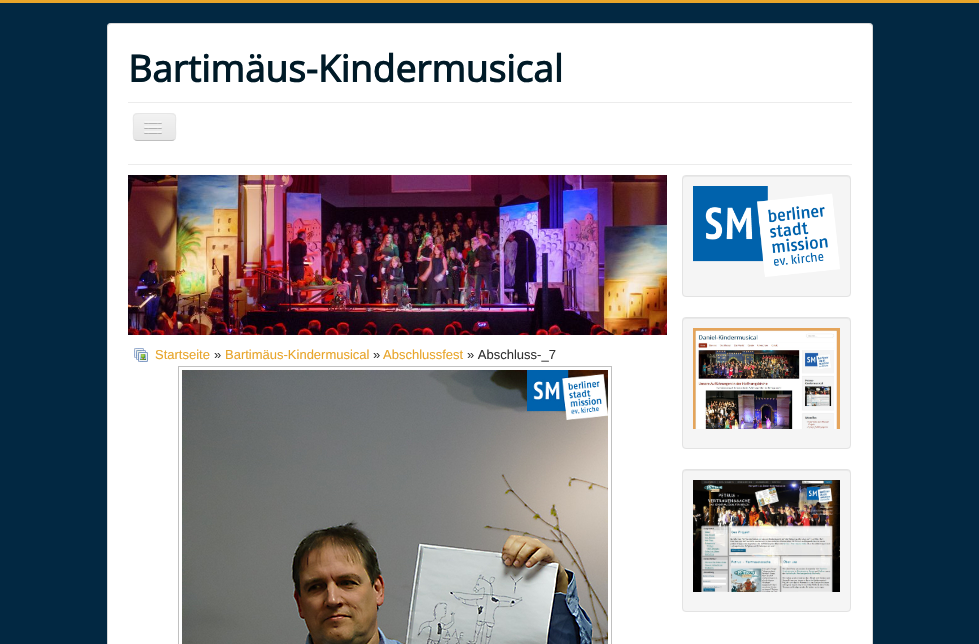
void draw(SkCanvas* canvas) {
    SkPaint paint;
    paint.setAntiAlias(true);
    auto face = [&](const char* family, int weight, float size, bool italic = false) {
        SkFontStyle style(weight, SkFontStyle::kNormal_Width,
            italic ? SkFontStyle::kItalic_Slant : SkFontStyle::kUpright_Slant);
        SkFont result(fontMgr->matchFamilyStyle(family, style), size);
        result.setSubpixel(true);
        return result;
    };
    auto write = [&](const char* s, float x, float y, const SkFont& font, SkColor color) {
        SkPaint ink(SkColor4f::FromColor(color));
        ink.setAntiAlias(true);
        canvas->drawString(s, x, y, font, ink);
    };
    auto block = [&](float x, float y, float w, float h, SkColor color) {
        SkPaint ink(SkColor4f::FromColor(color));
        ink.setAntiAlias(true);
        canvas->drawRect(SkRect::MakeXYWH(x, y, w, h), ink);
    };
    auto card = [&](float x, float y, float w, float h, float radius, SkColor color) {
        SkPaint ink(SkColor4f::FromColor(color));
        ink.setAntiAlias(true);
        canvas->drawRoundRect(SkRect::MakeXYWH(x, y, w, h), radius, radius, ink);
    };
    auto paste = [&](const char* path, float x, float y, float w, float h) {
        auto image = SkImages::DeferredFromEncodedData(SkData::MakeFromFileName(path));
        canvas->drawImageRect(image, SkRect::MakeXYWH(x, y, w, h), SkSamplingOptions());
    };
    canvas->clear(SkColorSetRGB(2, 40, 66));
    block(0, 0, 979, 3, SkColorSetRGB(232, 165, 42));
    card(107, 23, 766, 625, 4, SK_ColorWHITE);
    paint.setStyle(SkPaint::kStroke_Style);
    paint.setStrokeWidth(1);
    paint.setColor(SkColorSetARGB(38, 0, 0, 0));
    canvas->drawRoundRect(SkRect::MakeXYWH(107.5f, 23.5f, 765, 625), 3.5f, 3.5f, paint);
    auto kFont1 = face("Open Sans", 700, 37.1f);
    write("Bartimäus-Kindermusical", 128, 82, kFont1, SkColorSetRGB(0, 26, 39));
    block(128, 102, 724, 1, SkColorSetRGB(236, 236, 236));
    block(128, 164, 724, 1, SkColorSetRGB(236, 236, 236));
    card(133, 113, 43, 28, 4, SkColorSetRGB(237, 237, 237));
    canvas->save();
    canvas->clipPath(SkPathBuilder().moveTo(137, 113).lineTo(172, 113).cubicTo(174, 113, 176, 115, 176, 117).lineTo(176, 137).cubicTo(176, 139, 174, 141, 172, 141).lineTo(137, 141).cubicTo(135, 141, 133, 139, 133, 137).lineTo(133, 117).cubicTo(133, 115, 135, 113, 137, 113).close().detach(), true);
    paint.setStyle(SkPaint::kFill_Style);
    {
        const SkColor colors[] = {SkColorSetRGB(242, 242, 242), SkColorSetRGB(230, 230, 230)};
        const float stops[] = {0, 1};
        const SkPoint ends[] = {{155, 114}, {155, 140}};
        paint.setShader(SkGradientShader::MakeLinear(ends, colors, stops, 2, SkTileMode::kClamp));
        paint.setAlpha(255);
    }
    canvas->drawRect(SkRect::MakeXYWH(133, 114, 43, 26), paint);
    canvas->restore();
    paint.setStyle(SkPaint::kStroke_Style);
    paint.setShader(nullptr);
    paint.setColor(SkColorSetRGB(191, 191, 191));
    canvas->drawPath(SkPathBuilder().moveTo(174.5f, 139.5f).cubicTo(174, 140, 173, 140.5f, 172, 140.5f).lineTo(137, 140.5f).cubicTo(136, 140.5f, 135, 140, 134.5f, 139.5f).detach(), paint);
    paint.setColor(SkColorSetRGB(230, 230, 230));
    canvas->drawPath(SkPathBuilder().moveTo(134.5f, 139.5f).cubicTo(132.5f, 137, 133.5f, 129.5f, 133.5f, 127).cubicTo(133.5f, 115, 131, 113.5f, 143, 113.5f).lineTo(166, 113.5f).cubicTo(178, 113.5f, 175.5f, 115, 175.5f, 127).cubicTo(175.5f, 129.5f, 176.5f, 137, 174.5f, 139.5f).detach(), paint);
    paint.setStyle(SkPaint::kFill_Style);
    paint.setColor(SkColorSetRGB(179, 179, 179));
    canvas->drawPath(SkPathBuilder().moveTo(144, 122.5f).cubicTo(143, 124.5f, 147.5f, 124, 147.5f, 124).lineTo(158.5f, 124).cubicTo(158.5f, 124, 163, 124.5f, 162, 122.5f).cubicTo(161, 123.5f, 154.5f, 123, 153, 123).cubicTo(151.5f, 123, 145, 123.5f, 144, 122.5f).close().detach(), paint);
    card(144, 121, 18, 2, 1, SkColorSetRGB(245, 245, 245));
    paint.setColor(SkColorSetRGB(176, 176, 176));
    canvas->drawPath(SkPathBuilder().moveTo(144, 127.5f).cubicTo(143, 129.5f, 147.5f, 129, 147.5f, 129).lineTo(158.5f, 129).cubicTo(158.5f, 129, 163, 129.5f, 162, 127.5f).cubicTo(161, 128.5f, 154.5f, 128, 153, 128).cubicTo(151.5f, 128, 145, 128.5f, 144, 127.5f).close().detach(), paint);
    card(144, 126, 18, 2, 1, SkColorSetRGB(245, 245, 245));
    paint.setColor(SkColorSetRGB(175, 175, 175));
    canvas->drawPath(SkPathBuilder().moveTo(144, 132.5f).cubicTo(143, 134.5f, 147.5f, 134, 147.5f, 134).lineTo(158.5f, 134).cubicTo(158.5f, 134, 163, 134.5f, 162, 132.5f).cubicTo(161, 133.5f, 154.5f, 133, 153, 133).cubicTo(151.5f, 133, 145, 133.5f, 144, 132.5f).close().detach(), paint);
    card(144, 131, 18, 2, 1, SkColorSetRGB(245, 245, 245));
    paste("pic1.png", 128, 175, 539, 160);
    paste("pic2.png", 134, 348, 14, 14);
    auto kFont2 = face("Liberation Sans", 400, 13);
    write("Startseite", 155, 359, kFont2, SkColorSetRGB(232, 165, 42));
    write("»", 214, 359, kFont2, SkColorSetRGB(51, 51, 51));
    write("Bartimäus-Kindermusical", 225, 359, kFont2, SkColorSetRGB(232, 165, 42));
    write("»", 373, 359, kFont2, SkColorSetRGB(51, 51, 51));
    write("Abschlussfest", 383, 359, kFont2, SkColorSetRGB(232, 165, 42));
    write("» Abschluss-_7", 467, 359, kFont2, SkColorSetRGB(51, 51, 51));
    paint.setStyle(SkPaint::kStroke_Style);
    paint.setColor(SkColorSetRGB(192, 192, 192));
    canvas->drawRect(SkRect::MakeXYWH(178.5f, 366.5f, 433, 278), paint);
    paste("pic3.png", 182, 370, 426, 274);
    card(682, 175, 169, 122, 4, SkColorSetRGB(245, 245, 245));
    paint.setStyle(SkPaint::kFill_Style);
    paint.setColor(SkColorSetRGB(233, 233, 233));
    canvas->drawPath(SkPathBuilder().moveTo(686, 177).lineTo(847, 177).cubicTo(849, 177, 850, 178, 850, 180).lineTo(850, 179).cubicTo(850, 177, 849, 176, 847, 176).lineTo(686, 176).cubicTo(684, 176, 683, 177, 683, 179).lineTo(683, 180).cubicTo(683, 178, 684, 177, 686, 177).close().detach(), paint);
    paint.setStyle(SkPaint::kStroke_Style);
    paint.setColor(SkColorSetRGB(227, 227, 227));
    canvas->drawRoundRect(SkRect::MakeXYWH(682.5f, 175.5f, 168, 121), 3.5f, 3.5f, paint);
    paste("pic4.png", 693, 186, 147, 91);
    card(682, 317, 169, 132, 4, SkColorSetRGB(245, 245, 245));
    paint.setStyle(SkPaint::kFill_Style);
    paint.setColor(SkColorSetRGB(233, 233, 233));
    canvas->drawPath(SkPathBuilder().moveTo(686, 319).lineTo(847, 319).cubicTo(849, 319, 850, 320, 850, 322).lineTo(850, 321).cubicTo(850, 319, 849, 318, 847, 318).lineTo(686, 318).cubicTo(684, 318, 683, 319, 683, 321).lineTo(683, 322).cubicTo(683, 320, 684, 319, 686, 319).close().detach(), paint);
    paint.setStyle(SkPaint::kStroke_Style);
    paint.setColor(SkColorSetRGB(227, 227, 227));
    canvas->drawRoundRect(SkRect::MakeXYWH(682.5f, 317.5f, 168, 131), 3.5f, 3.5f, paint);
    paste("pic5.png", 693, 328, 147, 101);
    card(682, 469, 169, 143, 4, SkColorSetRGB(245, 245, 245));
    paint.setStyle(SkPaint::kFill_Style);
    paint.setColor(SkColorSetRGB(233, 233, 233));
    canvas->drawPath(SkPathBuilder().moveTo(686, 471).lineTo(847, 471).cubicTo(849, 471, 850, 472, 850, 474).lineTo(850, 473).cubicTo(850, 471, 849, 470, 847, 470).lineTo(686, 470).cubicTo(684, 470, 683, 471, 683, 473).lineTo(683, 474).cubicTo(683, 472, 684, 471, 686, 471).close().detach(), paint);
    paint.setStyle(SkPaint::kStroke_Style);
    paint.setColor(SkColorSetRGB(227, 227, 227));
    canvas->drawRoundRect(SkRect::MakeXYWH(682.5f, 469.5f, 168, 142), 3.5f, 3.5f, paint);
    paste("pic6.png", 693, 480, 147, 112);
}
